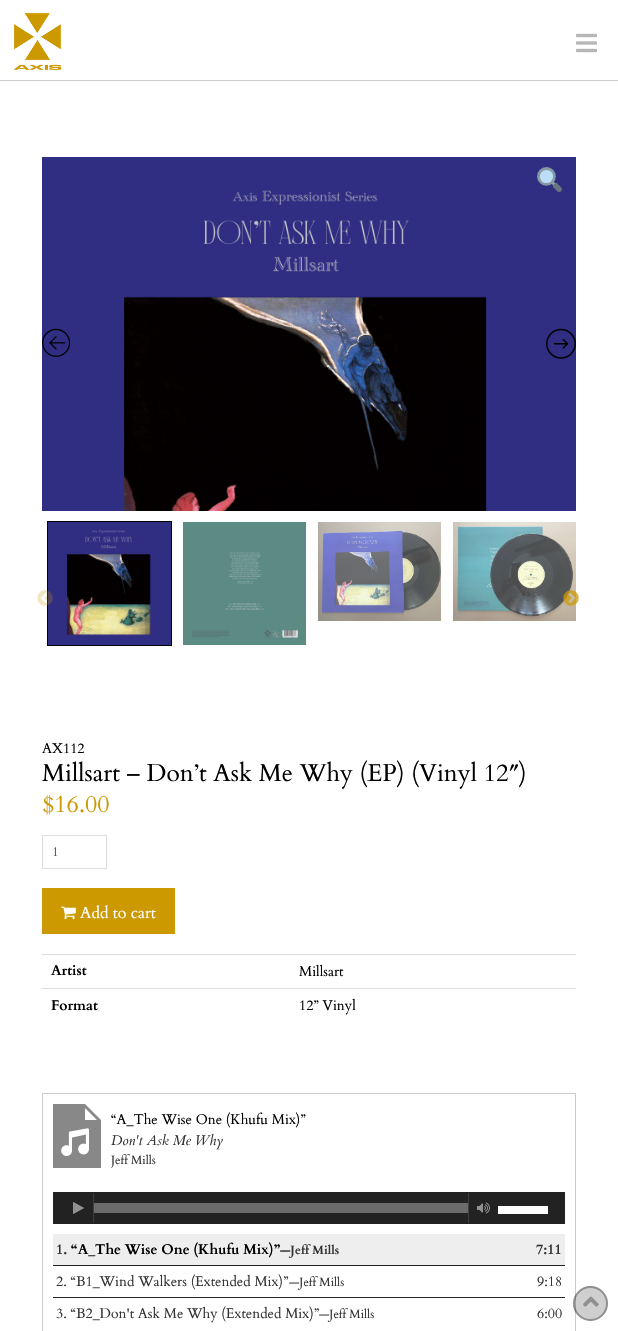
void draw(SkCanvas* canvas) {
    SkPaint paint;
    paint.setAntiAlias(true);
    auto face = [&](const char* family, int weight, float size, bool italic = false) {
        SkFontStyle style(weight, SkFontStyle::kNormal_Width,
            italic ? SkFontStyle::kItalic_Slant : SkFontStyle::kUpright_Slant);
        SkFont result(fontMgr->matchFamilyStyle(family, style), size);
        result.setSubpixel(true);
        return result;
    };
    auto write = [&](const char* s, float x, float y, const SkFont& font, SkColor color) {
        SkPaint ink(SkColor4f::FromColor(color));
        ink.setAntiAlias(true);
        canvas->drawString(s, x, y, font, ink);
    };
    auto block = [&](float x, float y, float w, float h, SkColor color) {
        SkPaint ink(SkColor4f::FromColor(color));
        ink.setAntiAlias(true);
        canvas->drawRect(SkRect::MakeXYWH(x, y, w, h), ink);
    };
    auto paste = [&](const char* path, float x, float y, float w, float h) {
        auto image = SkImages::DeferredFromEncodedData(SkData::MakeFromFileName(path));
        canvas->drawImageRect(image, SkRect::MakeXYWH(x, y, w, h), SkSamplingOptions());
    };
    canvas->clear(SK_ColorWHITE);
    block(0, 80, 618, 1, SkColorSetRGB(204, 204, 204));
    paste("pic1.png", 13, 13, 49, 57);
    paste("pic2.png", 576, 33, 21, 20);
    paste("pic3.png", 42, 157, 534, 354);
    paste("pic4.png", 537, 167, 25, 25);
    paste("pic5.png", 42, 328, 29, 29);
    paste("pic6.png", 546, 328, 30, 31);
    paint.setStyle(SkPaint::kStroke_Style);
    paint.setStrokeWidth(1);
    paint.setColor(SK_ColorBLACK);
    canvas->drawRect(SkRect::MakeXYWH(47.5f, 521.5f, 124, 124), paint);
    paste("pic8.png", 48, 522, 123, 123);
    paste("pic7.png", 37, 590, 16, 16);
    paste("pic9.png", 183, 522, 123, 123);
    paste("pic10.png", 318, 522, 123, 99);
    paste("pic11.png", 453, 522, 123, 99);
    paste("pic12.png", 563, 590, 16, 16);
    auto kFont1 = face("Cardo", 400, 14);
    write("AX112", 42, 753, kFont1, SK_ColorBLACK);
    auto kFont2 = face("Cardo", 400, 24.5f);
    write("Millsart – Don’t Ask Me Why (EP) (Vinyl 12″)", 42, 781, kFont2, SK_ColorBLACK);
    auto kFont3 = face("Cardo", 400, 24);
    write("$16.00", 42, 812, kFont3, SkColorSetRGB(204, 153, 0));
    paint.setColor(SkColorSetRGB(221, 221, 221));
    canvas->drawRect(SkRect::MakeXYWH(42.5f, 835.5f, 64, 33), paint);
    auto kFont4 = face("Cardo", 400, 13);
    write("1", 52, 856, kFont4, SkColorSetRGB(85, 85, 85));
    block(42, 888, 133, 46, SkColorSetRGB(204, 153, 0));
    paste("pic13.png", 61, 906, 15, 14);
    auto kFont5 = face("Cardo", 400, 16);
    write("Add to cart", 80, 918, kFont5, SK_ColorWHITE);
    auto kFont6 = face("Cardo", 700, 14);
    write("Artist", 51, 975, kFont6, SK_ColorBLACK);
    block(42, 954, 534, 1, SkColorSetRGB(221, 221, 221));
    write("Millsart", 299, 976, kFont1, SK_ColorBLACK);
    write("Format", 51, 1010, kFont6, SK_ColorBLACK);
    block(42, 988, 534, 1, SkColorSetRGB(221, 221, 221));
    write("12” Vinyl", 299, 1010, kFont1, SK_ColorBLACK);
    paint.setColor(SkColorSetRGB(204, 204, 204));
    canvas->drawRect(SkRect::MakeXYWH(42.5f, 1093.5f, 533, 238), paint);
    paste("pic14.png", 53, 1104, 48, 64);
    write("“A_The Wise One (Khufu Mix)”", 111, 1124, kFont1, SK_ColorBLACK);
    auto kFont7 = face("Cardo", 400, 14, true);
    write("Don't Ask Me Why", 111, 1145, kFont7, SkColorSetRGB(51, 51, 51));
    canvas->save();
    canvas->clipRect(SkRect::MakeXYWH(111, 1151, 450, 18));
    auto kFont8 = face("Cardo", 400, 12);
    write("Jeff Mills", 111, 1164, kFont8, SkColorSetRGB(51, 51, 51));
    canvas->restore();
    block(53, 1192, 512, 32, SkColorSetRGB(34, 34, 34));
    block(93, 1193, 1, 30, SkColorSetRGB(62, 62, 62));
    paste("pic15.png", 73, 1202, 11, 12);
    block(94, 1203, 374, 10, SkColorSetRGB(107, 107, 107));
    block(468, 1193, 1, 30, SkColorSetRGB(62, 62, 62));
    paste("pic16.png", 477, 1202, 13, 12);
    block(498, 1206, 50, 8, SK_ColorWHITE);
    block(53, 1234, 512, 31, SkColorSetRGB(238, 238, 238));
    block(53, 1265, 512, 1, SkColorSetRGB(34, 34, 34));
    write("1.", 56, 1254, kFont6, SkColorSetRGB(51, 51, 51));
    write("“A_The Wise One (Khufu Mix)”", 71, 1254, kFont6, SK_ColorBLACK);
    auto kFont9 = face("Cardo", 700, 12);
    write("—Jeff Mills", 280, 1254, kFont9, SkColorSetRGB(51, 51, 51));
    write("7:11", 536, 1254, kFont6, SkColorSetRGB(51, 51, 51));
    block(53, 1297, 512, 1, SkColorSetRGB(34, 34, 34));
    write("2. “B1_Wind Walkers (Extended Mix)”", 56, 1286, kFont1, SkColorSetRGB(51, 51, 51));
    write("—Jeff Mills", 289, 1286, kFont8, SkColorSetRGB(51, 51, 51));
    write("9:18", 537, 1286, kFont1, SkColorSetRGB(51, 51, 51));
    write("3. “B2_Don't Ask Me Why (Extended Mix)”", 56, 1318, kFont1, SkColorSetRGB(51, 51, 51));
    write("—Jeff Mills", 319, 1318, kFont8, SkColorSetRGB(51, 51, 51));
    write("6:00", 537, 1318, kFont1, SkColorSetRGB(51, 51, 51));
    paint.setStyle(SkPaint::kFill_Style);
    paint.setColor(SkColorSetARGB(48, 0, 0, 0));
    canvas->drawCircle(590.5f, 1303.5f, 17.5f, paint);
    paint.setStyle(SkPaint::kStroke_Style);
    paint.setStrokeWidth(2);
    paint.setColor(SkColorSetARGB(97, 39, 39, 39));
    canvas->drawCircle(590.5f, 1303.5f, 16.5f, paint);
    paste("pic17.png", 583, 1296, 16, 11);
}
